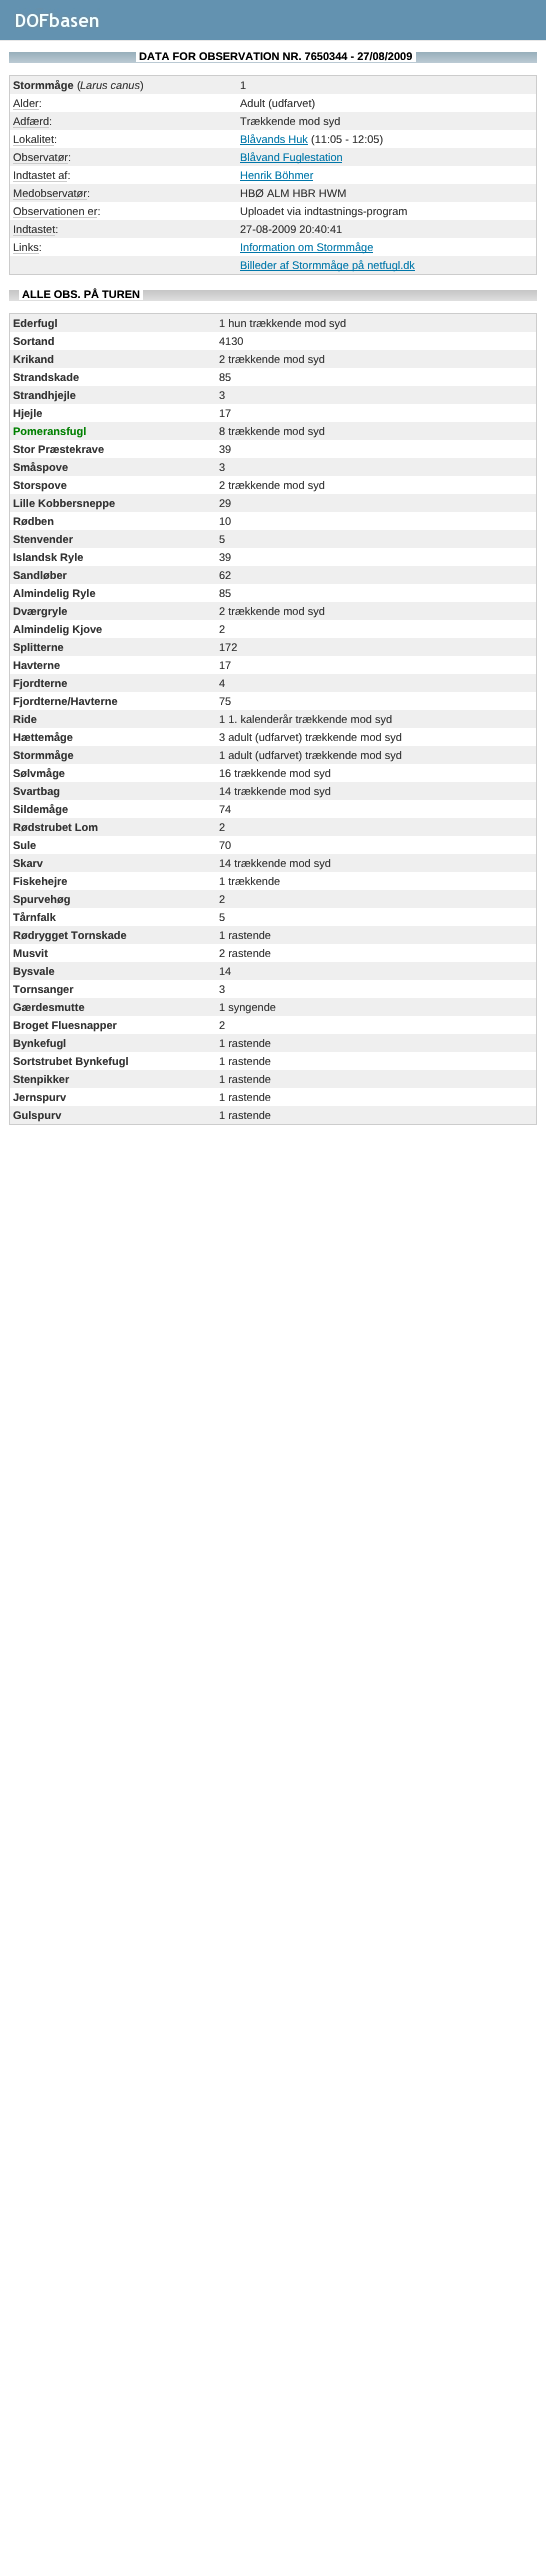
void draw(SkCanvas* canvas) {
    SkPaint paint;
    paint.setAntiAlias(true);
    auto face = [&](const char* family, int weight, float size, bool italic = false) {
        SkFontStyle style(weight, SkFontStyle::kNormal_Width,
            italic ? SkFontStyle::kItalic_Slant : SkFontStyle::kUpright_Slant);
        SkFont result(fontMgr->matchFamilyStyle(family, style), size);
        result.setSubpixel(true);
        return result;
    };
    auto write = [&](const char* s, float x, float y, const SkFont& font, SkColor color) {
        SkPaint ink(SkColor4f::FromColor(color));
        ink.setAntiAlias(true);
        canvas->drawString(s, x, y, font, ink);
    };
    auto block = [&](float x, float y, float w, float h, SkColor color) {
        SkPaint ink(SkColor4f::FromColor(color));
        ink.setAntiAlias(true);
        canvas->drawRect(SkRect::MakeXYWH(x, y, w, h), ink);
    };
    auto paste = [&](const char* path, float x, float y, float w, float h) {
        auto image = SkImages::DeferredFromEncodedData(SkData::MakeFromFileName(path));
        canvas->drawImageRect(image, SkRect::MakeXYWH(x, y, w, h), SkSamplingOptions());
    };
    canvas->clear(SK_ColorWHITE);
    block(0, 0, 546, 40, SkColorSetRGB(99, 146, 176));
    block(0, 40, 546, 1, SkColorSetRGB(232, 232, 232));
    paste("pic1.png", 14, 8, 86, 21);
    paste("pic2.png", 9, 52, 528, 11);
    block(136, 52, 280, 10, SK_ColorWHITE);
    auto kFont1 = face("Liberation Sans", 700, 11);
    write("DATA FOR OBSERVATION NR. 7650344 - 27/08/2009", 139, 60, kFont1, SK_ColorBLACK);
    block(9, 75, 528, 1, SkColorSetRGB(204, 204, 204));
    block(536, 75, 1, 200, SkColorSetRGB(204, 204, 204));
    block(9, 274, 528, 1, SkColorSetRGB(204, 204, 204));
    block(9, 75, 1, 200, SkColorSetRGB(204, 204, 204));
    block(10, 76, 526, 18, SkColorSetRGB(239, 239, 239));
    write("Stormmåge", 13, 89, kFont1, SkColorSetRGB(51, 51, 51));
    auto kFont2 = face("Liberation Sans", 400, 11);
    write("(", 77, 89, kFont2, SkColorSetRGB(51, 51, 51));
    auto kFont3 = face("Liberation Sans", 400, 11, true);
    write("Larus canus", 80, 89, kFont3, SkColorSetRGB(51, 51, 51));
    write(")", 140, 89, kFont2, SkColorSetRGB(51, 51, 51));
    write("1", 240, 89, kFont2, SkColorSetRGB(51, 51, 51));
    write("Alder:", 13, 107, kFont2, SkColorSetRGB(51, 51, 51));
    block(13, 109, 26, 1, SkColorSetRGB(204, 204, 204));
    write("Adult (udfarvet)", 240, 107, kFont2, SkColorSetRGB(51, 51, 51));
    block(10, 112, 526, 18, SkColorSetRGB(239, 239, 239));
    write("Adfærd:", 13, 125, kFont2, SkColorSetRGB(51, 51, 51));
    block(13, 127, 36, 1, SkColorSetRGB(204, 204, 204));
    write("Trækkende mod syd", 240, 125, kFont2, SkColorSetRGB(51, 51, 51));
    write("Lokalitet:", 13, 143, kFont2, SkColorSetRGB(51, 51, 51));
    block(13, 145, 41, 1, SkColorSetRGB(204, 204, 204));
    write("Blåvands Huk", 240, 143, kFont2, SkColorSetRGB(0, 119, 170));
    block(240, 144, 68, 1, SkColorSetRGB(0, 119, 170));
    write("(11:05 - 12:05)", 311, 143, kFont2, SkColorSetRGB(51, 51, 51));
    block(10, 148, 526, 18, SkColorSetRGB(239, 239, 239));
    write("Observatør:", 13, 161, kFont2, SkColorSetRGB(51, 51, 51));
    block(13, 163, 55, 1, SkColorSetRGB(204, 204, 204));
    block(240, 162, 102, 1, SkColorSetRGB(0, 119, 170));
    write("Blåvand Fuglestation", 240, 161, kFont2, SkColorSetRGB(0, 119, 170));
    write("Indtastet af:", 13, 179, kFont2, SkColorSetRGB(51, 51, 51));
    block(13, 181, 54, 1, SkColorSetRGB(204, 204, 204));
    write("Henrik Böhmer", 240, 179, kFont2, SkColorSetRGB(0, 119, 170));
    block(240, 180, 73, 1, SkColorSetRGB(0, 119, 170));
    block(10, 184, 526, 18, SkColorSetRGB(239, 239, 239));
    write("Medobservatør:", 13, 197, kFont2, SkColorSetRGB(51, 51, 51));
    block(13, 199, 74, 1, SkColorSetRGB(204, 204, 204));
    write("HBØ ALM HBR HWM", 240, 197, kFont2, SkColorSetRGB(51, 51, 51));
    write("Observationen er:", 13, 215, kFont2, SkColorSetRGB(51, 51, 51));
    block(13, 217, 84, 1, SkColorSetRGB(204, 204, 204));
    write("Uploadet via indtastnings-program", 240, 215, kFont2, SkColorSetRGB(51, 51, 51));
    block(10, 220, 526, 18, SkColorSetRGB(239, 239, 239));
    write("Indtastet:", 13, 233, kFont2, SkColorSetRGB(51, 51, 51));
    block(13, 235, 42, 1, SkColorSetRGB(204, 204, 204));
    write("27-08-2009 20:40:41", 240, 233, kFont2, SkColorSetRGB(51, 51, 51));
    write("Links:", 13, 251, kFont2, SkColorSetRGB(51, 51, 51));
    block(13, 253, 26, 1, SkColorSetRGB(204, 204, 204));
    block(240, 252, 133, 1, SkColorSetRGB(0, 119, 170));
    write("Information om Stormmåge", 240, 251, kFont2, SkColorSetRGB(0, 119, 170));
    block(10, 256, 526, 18, SkColorSetRGB(239, 239, 239));
    block(240, 270, 175, 1, SkColorSetRGB(0, 119, 170));
    write("Billeder af Stormmåge på netfugl.dk", 240, 269, kFont2, SkColorSetRGB(0, 119, 170));
    paste("pic3.png", 9, 290, 528, 11);
    block(19, 290, 124, 10, SK_ColorWHITE);
    write("ALLE OBS. PÅ TUREN", 22, 298, kFont1, SK_ColorBLACK);
    block(9, 313, 528, 1, SkColorSetRGB(204, 204, 204));
    block(536, 313, 1, 812, SkColorSetRGB(204, 204, 204));
    block(9, 1124, 528, 1, SkColorSetRGB(204, 204, 204));
    block(9, 313, 1, 812, SkColorSetRGB(204, 204, 204));
    block(10, 314, 526, 18, SkColorSetRGB(239, 239, 239));
    write("Ederfugl", 13, 327, kFont1, SkColorSetRGB(51, 51, 51));
    write("1 hun trækkende mod syd", 219, 327, kFont2, SkColorSetRGB(51, 51, 51));
    write("Sortand", 13, 345, kFont1, SkColorSetRGB(51, 51, 51));
    write("4130", 219, 345, kFont2, SkColorSetRGB(51, 51, 51));
    block(10, 350, 526, 18, SkColorSetRGB(239, 239, 239));
    write("Krikand", 13, 363, kFont1, SkColorSetRGB(51, 51, 51));
    write("2 trækkende mod syd", 219, 363, kFont2, SkColorSetRGB(51, 51, 51));
    write("Strandskade", 13, 381, kFont1, SkColorSetRGB(51, 51, 51));
    write("85", 219, 381, kFont2, SkColorSetRGB(51, 51, 51));
    block(10, 386, 526, 18, SkColorSetRGB(239, 239, 239));
    write("Strandhjejle", 13, 399, kFont1, SkColorSetRGB(51, 51, 51));
    write("3", 219, 399, kFont2, SkColorSetRGB(51, 51, 51));
    write("Hjejle", 13, 417, kFont1, SkColorSetRGB(51, 51, 51));
    write("17", 219, 417, kFont2, SkColorSetRGB(51, 51, 51));
    block(10, 422, 526, 18, SkColorSetRGB(239, 239, 239));
    write("Pomeransfugl", 13, 435, kFont1, SkColorSetRGB(0, 128, 0));
    write("8 trækkende mod syd", 219, 435, kFont2, SkColorSetRGB(51, 51, 51));
    write("Stor Præstekrave", 13, 453, kFont1, SkColorSetRGB(51, 51, 51));
    write("39", 219, 453, kFont2, SkColorSetRGB(51, 51, 51));
    block(10, 458, 526, 18, SkColorSetRGB(239, 239, 239));
    write("Småspove", 13, 471, kFont1, SkColorSetRGB(51, 51, 51));
    write("3", 219, 471, kFont2, SkColorSetRGB(51, 51, 51));
    write("Storspove", 13, 489, kFont1, SkColorSetRGB(51, 51, 51));
    write("2 trækkende mod syd", 219, 489, kFont2, SkColorSetRGB(51, 51, 51));
    block(10, 494, 526, 18, SkColorSetRGB(239, 239, 239));
    write("Lille Kobbersneppe", 13, 507, kFont1, SkColorSetRGB(51, 51, 51));
    write("29", 219, 507, kFont2, SkColorSetRGB(51, 51, 51));
    write("Rødben", 13, 525, kFont1, SkColorSetRGB(51, 51, 51));
    write("10", 219, 525, kFont2, SkColorSetRGB(51, 51, 51));
    block(10, 530, 526, 18, SkColorSetRGB(239, 239, 239));
    write("Stenvender", 13, 543, kFont1, SkColorSetRGB(51, 51, 51));
    write("5", 219, 543, kFont2, SkColorSetRGB(51, 51, 51));
    write("Islandsk Ryle", 13, 561, kFont1, SkColorSetRGB(51, 51, 51));
    write("39", 219, 561, kFont2, SkColorSetRGB(51, 51, 51));
    block(10, 566, 526, 18, SkColorSetRGB(239, 239, 239));
    write("Sandløber", 13, 579, kFont1, SkColorSetRGB(51, 51, 51));
    write("62", 219, 579, kFont2, SkColorSetRGB(51, 51, 51));
    write("Almindelig Ryle", 13, 597, kFont1, SkColorSetRGB(51, 51, 51));
    write("85", 219, 597, kFont2, SkColorSetRGB(51, 51, 51));
    block(10, 602, 526, 18, SkColorSetRGB(239, 239, 239));
    write("Dværgryle", 13, 615, kFont1, SkColorSetRGB(51, 51, 51));
    write("2 trækkende mod syd", 219, 615, kFont2, SkColorSetRGB(51, 51, 51));
    write("Almindelig Kjove", 13, 633, kFont1, SkColorSetRGB(51, 51, 51));
    write("2", 219, 633, kFont2, SkColorSetRGB(51, 51, 51));
    block(10, 638, 526, 18, SkColorSetRGB(239, 239, 239));
    write("Splitterne", 13, 651, kFont1, SkColorSetRGB(51, 51, 51));
    write("172", 219, 651, kFont2, SkColorSetRGB(51, 51, 51));
    write("Havterne", 13, 669, kFont1, SkColorSetRGB(51, 51, 51));
    write("17", 219, 669, kFont2, SkColorSetRGB(51, 51, 51));
    block(10, 674, 526, 18, SkColorSetRGB(239, 239, 239));
    write("Fjordterne", 13, 687, kFont1, SkColorSetRGB(51, 51, 51));
    write("4", 219, 687, kFont2, SkColorSetRGB(51, 51, 51));
    write("Fjordterne/Havterne", 13, 705, kFont1, SkColorSetRGB(51, 51, 51));
    write("75", 219, 705, kFont2, SkColorSetRGB(51, 51, 51));
    block(10, 710, 526, 18, SkColorSetRGB(239, 239, 239));
    write("Ride", 13, 723, kFont1, SkColorSetRGB(51, 51, 51));
    write("1 1. kalenderår trækkende mod syd", 219, 723, kFont2, SkColorSetRGB(51, 51, 51));
    write("Hættemåge", 13, 741, kFont1, SkColorSetRGB(51, 51, 51));
    write("3 adult (udfarvet) trækkende mod syd", 219, 741, kFont2, SkColorSetRGB(51, 51, 51));
    block(10, 746, 526, 18, SkColorSetRGB(239, 239, 239));
    write("Stormmåge", 13, 759, kFont1, SkColorSetRGB(51, 51, 51));
    write("1 adult (udfarvet) trækkende mod syd", 219, 759, kFont2, SkColorSetRGB(51, 51, 51));
    write("Sølvmåge", 13, 777, kFont1, SkColorSetRGB(51, 51, 51));
    write("16 trækkende mod syd", 219, 777, kFont2, SkColorSetRGB(51, 51, 51));
    block(10, 782, 526, 18, SkColorSetRGB(239, 239, 239));
    write("Svartbag", 13, 795, kFont1, SkColorSetRGB(51, 51, 51));
    write("14 trækkende mod syd", 219, 795, kFont2, SkColorSetRGB(51, 51, 51));
    write("Sildemåge", 13, 813, kFont1, SkColorSetRGB(51, 51, 51));
    write("74", 219, 813, kFont2, SkColorSetRGB(51, 51, 51));
    block(10, 818, 526, 18, SkColorSetRGB(239, 239, 239));
    write("Rødstrubet Lom", 13, 831, kFont1, SkColorSetRGB(51, 51, 51));
    write("2", 219, 831, kFont2, SkColorSetRGB(51, 51, 51));
    write("Sule", 13, 849, kFont1, SkColorSetRGB(51, 51, 51));
    write("70", 219, 849, kFont2, SkColorSetRGB(51, 51, 51));
    block(10, 854, 526, 18, SkColorSetRGB(239, 239, 239));
    write("Skarv", 13, 867, kFont1, SkColorSetRGB(51, 51, 51));
    write("14 trækkende mod syd", 219, 867, kFont2, SkColorSetRGB(51, 51, 51));
    write("Fiskehejre", 13, 885, kFont1, SkColorSetRGB(51, 51, 51));
    write("1 trækkende", 219, 885, kFont2, SkColorSetRGB(51, 51, 51));
    block(10, 890, 526, 18, SkColorSetRGB(239, 239, 239));
    write("Spurvehøg", 13, 903, kFont1, SkColorSetRGB(51, 51, 51));
    write("2", 219, 903, kFont2, SkColorSetRGB(51, 51, 51));
    write("Tårnfalk", 13, 921, kFont1, SkColorSetRGB(51, 51, 51));
    write("5", 219, 921, kFont2, SkColorSetRGB(51, 51, 51));
    block(10, 926, 526, 18, SkColorSetRGB(239, 239, 239));
    write("Rødrygget Tornskade", 13, 939, kFont1, SkColorSetRGB(51, 51, 51));
    write("1 rastende", 219, 939, kFont2, SkColorSetRGB(51, 51, 51));
    write("Musvit", 13, 957, kFont1, SkColorSetRGB(51, 51, 51));
    write("2 rastende", 219, 957, kFont2, SkColorSetRGB(51, 51, 51));
    block(10, 962, 526, 18, SkColorSetRGB(239, 239, 239));
    write("Bysvale", 13, 975, kFont1, SkColorSetRGB(51, 51, 51));
    write("14", 219, 975, kFont2, SkColorSetRGB(51, 51, 51));
    write("Tornsanger", 13, 993, kFont1, SkColorSetRGB(51, 51, 51));
    write("3", 219, 993, kFont2, SkColorSetRGB(51, 51, 51));
    block(10, 998, 526, 18, SkColorSetRGB(239, 239, 239));
    write("Gærdesmutte", 13, 1011, kFont1, SkColorSetRGB(51, 51, 51));
    write("1 syngende", 219, 1011, kFont2, SkColorSetRGB(51, 51, 51));
    write("Broget Fluesnapper", 13, 1029, kFont1, SkColorSetRGB(51, 51, 51));
    write("2", 219, 1029, kFont2, SkColorSetRGB(51, 51, 51));
    block(10, 1034, 526, 18, SkColorSetRGB(239, 239, 239));
    write("Bynkefugl", 13, 1047, kFont1, SkColorSetRGB(51, 51, 51));
    write("1 rastende", 219, 1047, kFont2, SkColorSetRGB(51, 51, 51));
    write("Sortstrubet Bynkefugl", 13, 1065, kFont1, SkColorSetRGB(51, 51, 51));
    write("1 rastende", 219, 1065, kFont2, SkColorSetRGB(51, 51, 51));
    block(10, 1070, 526, 18, SkColorSetRGB(239, 239, 239));
    write("Stenpikker", 13, 1083, kFont1, SkColorSetRGB(51, 51, 51));
    write("1 rastende", 219, 1083, kFont2, SkColorSetRGB(51, 51, 51));
    write("Jernspurv", 13, 1101, kFont1, SkColorSetRGB(51, 51, 51));
    write("1 rastende", 219, 1101, kFont2, SkColorSetRGB(51, 51, 51));
    block(10, 1106, 526, 18, SkColorSetRGB(239, 239, 239));
    write("Gulspurv", 13, 1119, kFont1, SkColorSetRGB(51, 51, 51));
    write("1 rastende", 219, 1119, kFont2, SkColorSetRGB(51, 51, 51));
}
